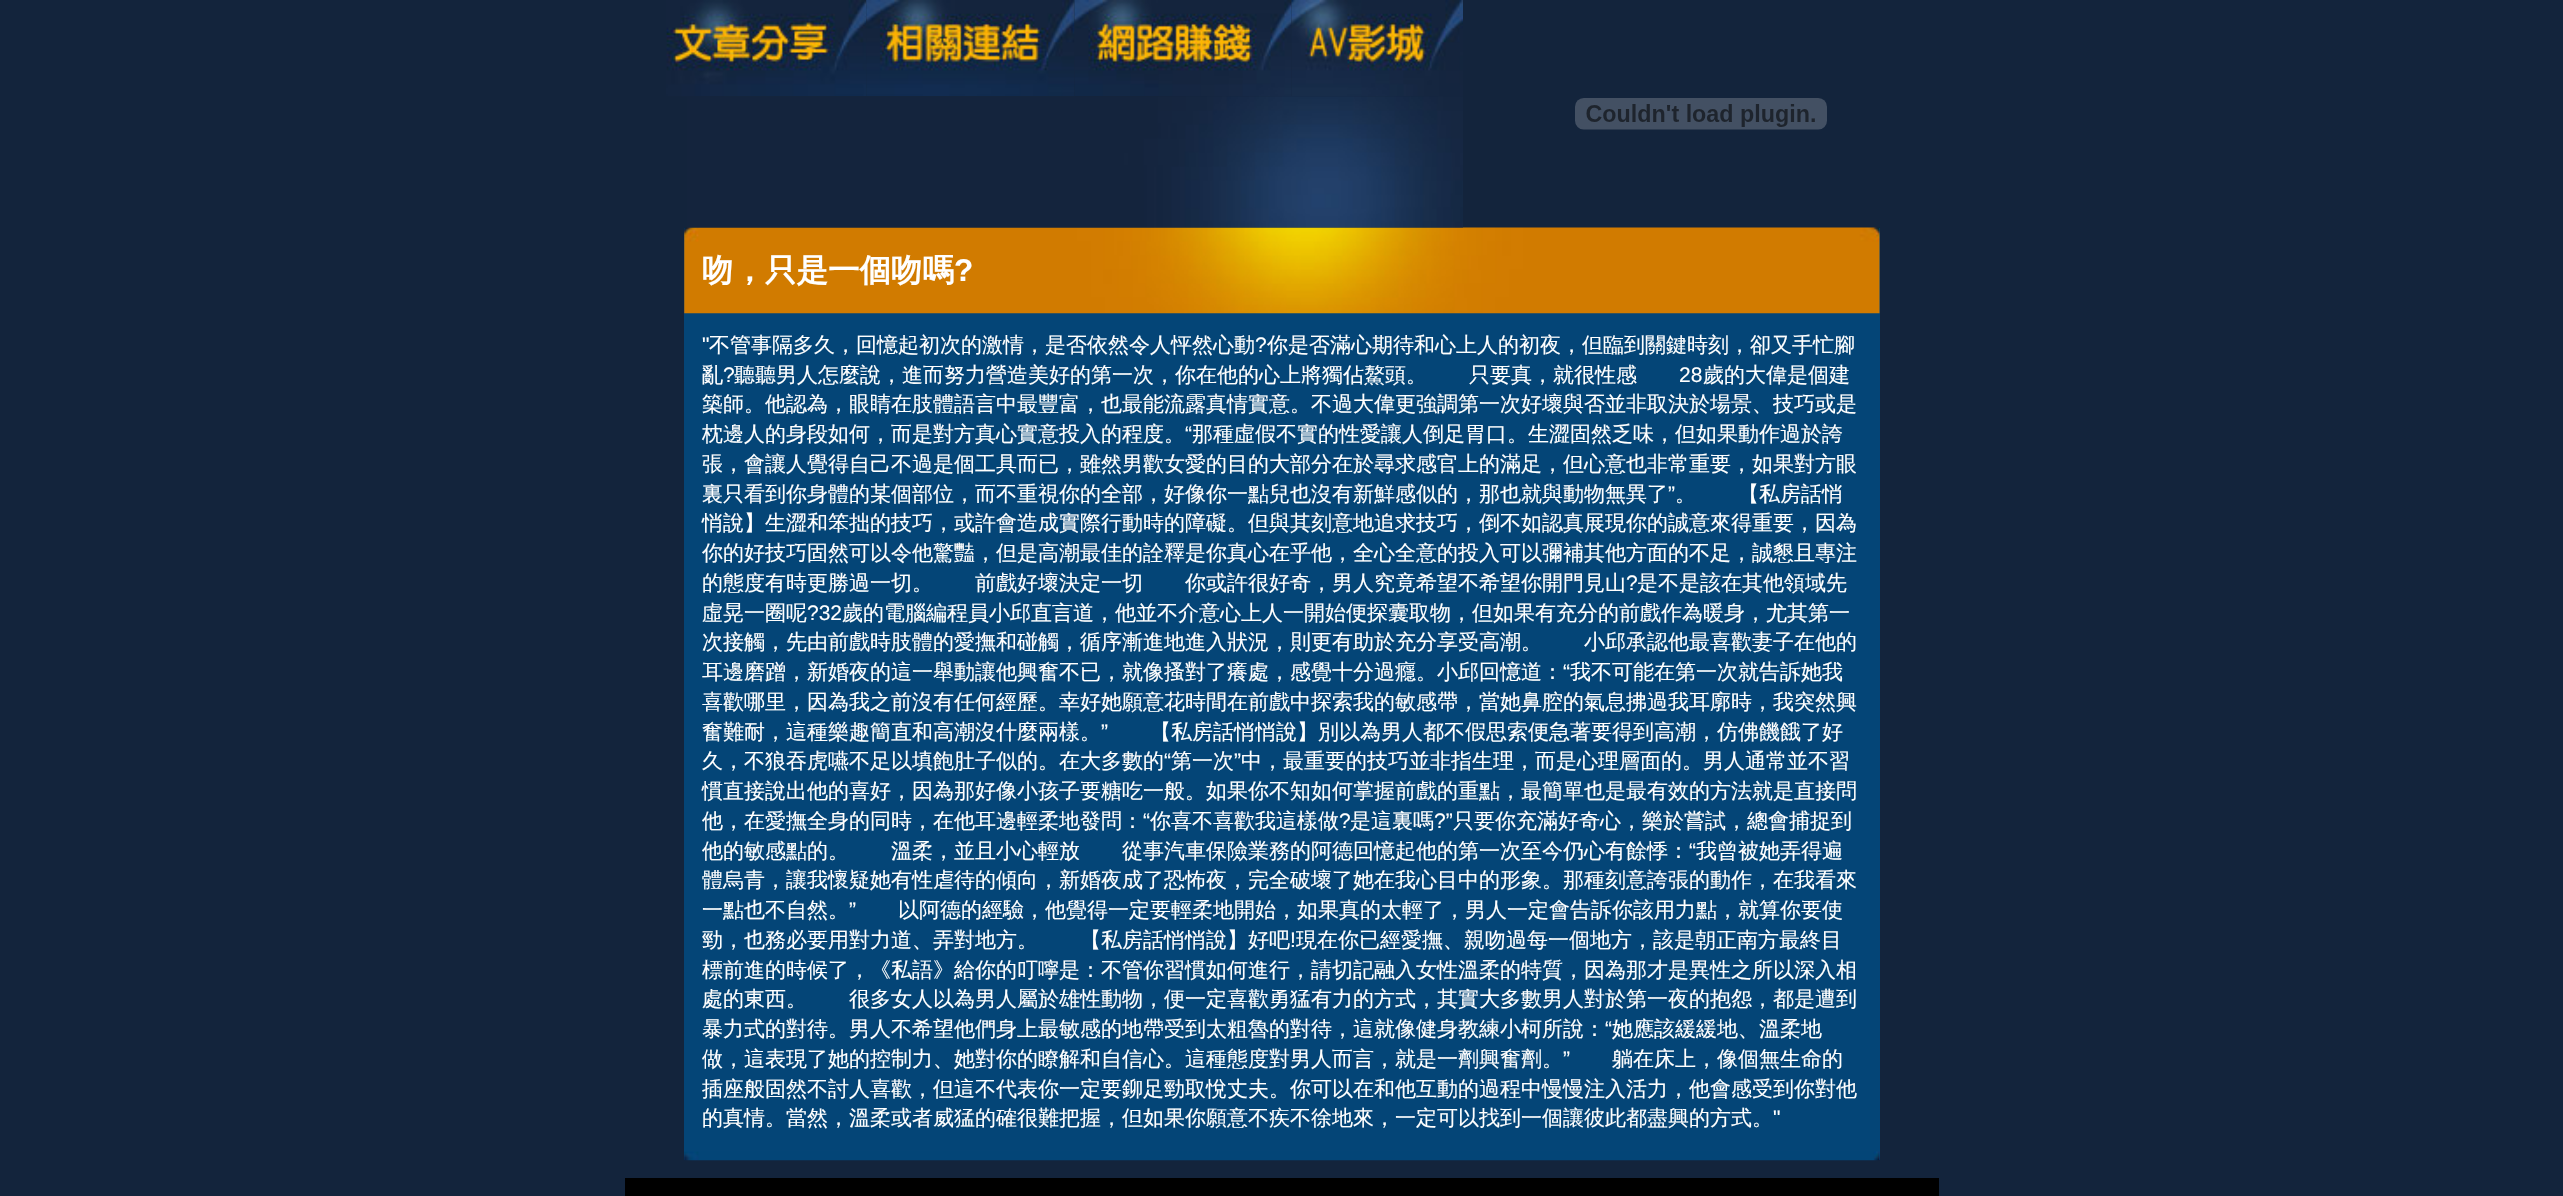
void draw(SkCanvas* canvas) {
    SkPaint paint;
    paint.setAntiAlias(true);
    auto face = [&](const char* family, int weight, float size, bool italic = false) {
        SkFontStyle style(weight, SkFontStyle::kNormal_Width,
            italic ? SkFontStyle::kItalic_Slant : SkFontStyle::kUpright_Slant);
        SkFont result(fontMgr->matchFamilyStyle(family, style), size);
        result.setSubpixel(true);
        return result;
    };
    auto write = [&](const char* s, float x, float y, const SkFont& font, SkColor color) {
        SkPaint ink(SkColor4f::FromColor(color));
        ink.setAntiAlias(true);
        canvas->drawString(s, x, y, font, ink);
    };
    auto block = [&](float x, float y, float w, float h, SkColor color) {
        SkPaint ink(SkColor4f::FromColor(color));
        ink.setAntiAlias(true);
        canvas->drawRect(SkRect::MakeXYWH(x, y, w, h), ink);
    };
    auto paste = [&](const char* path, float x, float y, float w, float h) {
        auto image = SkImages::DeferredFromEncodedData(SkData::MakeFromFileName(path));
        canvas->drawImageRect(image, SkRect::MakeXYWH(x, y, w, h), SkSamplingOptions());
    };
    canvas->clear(SkColorSetRGB(19, 36, 60));
    paste("pic1.png", 666, 0, 201, 97);
    paste("pic2.png", 866, 0, 209, 97);
    paste("pic3.png", 1074, 0, 218, 96);
    paste("pic4.png", 1291, 0, 172, 96);
    paste("pic5.png", 1575, 98, 252, 32);
    block(684, 228, 1196, 932, SkColorSetRGB(4, 69, 119));
    paste("pic7.png", 684, 227, 1196, 87);
    paste("pic6.png", 687, 96, 776, 132);
    auto kFont1 = face("WenQuanYi Zen Hei", 700, 31.5f);
    write("吻，只是一個吻嗎", 702, 281, kFont1, SK_ColorWHITE);
    auto kFont2 = face("Liberation Sans", 700, 31.5f);
    write("?", 954, 281, kFont2, SK_ColorWHITE);
    auto kFont3 = face("Liberation Sans", 400, 21);
    write("\"", 702, 352, kFont3, SK_ColorWHITE);
    auto kFont4 = face("WenQuanYi Zen Hei", 500, 21);
    write("不管事隔多久，回憶起初次的激情，是否依然令人怦然心動", 709, 352, kFont4, SK_ColorWHITE);
    write("?", 1255, 352, kFont3, SK_ColorWHITE);
    write("你是否滿心期待和心上人的初夜，但臨到關鍵時刻，卻又手忙腳", 1267, 352, kFont4, SK_ColorWHITE);
    write("亂", 702, 382, kFont4, SK_ColorWHITE);
    write("?", 723, 382, kFont3, SK_ColorWHITE);
    write("聽聽男人怎麼說，進而努力營造美好的第一次，你在他的心上將獨佔鰲頭。　　只要真，就很性感", 734, 382, kFont4, SK_ColorWHITE);
    write("28", 1679, 382, kFont3, SK_ColorWHITE);
    write("歲的大偉是個建", 1703, 382, kFont4, SK_ColorWHITE);
    write("築師。他認為，眼睛在肢體語言中最豐富，也最能流露真情實意。不過大偉更強調第一次好壞與否並非取決於場景、技巧或是", 702, 411, kFont4, SK_ColorWHITE);
    write("枕邊人的身段如何，而是對方真心實意投入的程度。", 702, 441, kFont4, SK_ColorWHITE);
    write("“", 1185, 441, kFont3, SK_ColorWHITE);
    write("那種虛假不實的性愛讓人倒足胃口。生澀固然乏味，但如果動作過於誇", 1192, 441, kFont4, SK_ColorWHITE);
    write("張，會讓人覺得自己不過是個工具而已，雖然男歡女愛的目的大部分在於尋求感官上的滿足，但心意也非常重要，如果對方眼", 702, 471, kFont4, SK_ColorWHITE);
    write("裏只看到你身體的某個部位，而不重視你的全部，好像你一點兒也沒有新鮮感似的，那也就與動物無異了", 702, 501, kFont4, SK_ColorWHITE);
    write("”", 1668, 501, kFont3, SK_ColorWHITE);
    write("。　　【私房話悄", 1675, 501, kFont4, SK_ColorWHITE);
    write("悄說】生澀和笨拙的技巧，或許會造成實際行動時的障礙。但與其刻意地追求技巧，倒不如認真展現你的誠意來得重要，因為", 702, 530, kFont4, SK_ColorWHITE);
    write("你的好技巧固然可以令他驚豔，但是高潮最佳的詮釋是你真心在乎他，全心全意的投入可以彌補其他方面的不足，誠懇且專注", 702, 560, kFont4, SK_ColorWHITE);
    write("的態度有時更勝過一切。　　前戲好壞決定一切　　你或許很好奇，男人究竟希望不希望你開門見山", 702, 590, kFont4, SK_ColorWHITE);
    write("?", 1626, 590, kFont3, SK_ColorWHITE);
    write("是不是該在其他領域先", 1637, 590, kFont4, SK_ColorWHITE);
    write("虛晃一圈呢", 702, 620, kFont4, SK_ColorWHITE);
    write("?32", 807, 620, kFont3, SK_ColorWHITE);
    write("歲的電腦編程員小邱直言道，他並不介意心上人一開始便探囊取物，但如果有充分的前戲作為暖身，尤其第一", 842, 620, kFont4, SK_ColorWHITE);
    write("次接觸，先由前戲時肢體的愛撫和碰觸，循序漸進地進入狀況，則更有助於充分享受高潮。　　小邱承認他最喜歡妻子在他的", 702, 649, kFont4, SK_ColorWHITE);
    write("耳邊磨蹭，新婚夜的這一舉動讓他興奮不已，就像搔對了癢處，感覺十分過癮。小邱回憶道：", 702, 679, kFont4, SK_ColorWHITE);
    write("“", 1563, 679, kFont3, SK_ColorWHITE);
    write("我不可能在第一次就告訴她我", 1570, 679, kFont4, SK_ColorWHITE);
    write("喜歡哪里，因為我之前沒有任何經歷。幸好她願意花時間在前戲中探索我的敏感帶，當她鼻腔的氣息拂過我耳廓時，我突然興", 702, 709, kFont4, SK_ColorWHITE);
    write("奮難耐，這種樂趣簡直和高潮沒什麼兩樣。", 702, 739, kFont4, SK_ColorWHITE);
    write("”", 1101, 739, kFont3, SK_ColorWHITE);
    write("【私房話悄悄說】別以為男人都不假思索便急著要得到高潮，仿佛饑餓了好", 1150, 739, kFont4, SK_ColorWHITE);
    write("久，不狼吞虎嚥不足以填飽肚子似的。在大多數的", 702, 768, kFont4, SK_ColorWHITE);
    write("“", 1164, 768, kFont3, SK_ColorWHITE);
    write("第一次", 1171, 768, kFont4, SK_ColorWHITE);
    write("”", 1234, 768, kFont3, SK_ColorWHITE);
    write("中，最重要的技巧並非指生理，而是心理層面的。男人通常並不習", 1241, 768, kFont4, SK_ColorWHITE);
    write("慣直接說出他的喜好，因為那好像小孩子要糖吃一般。如果你不知如何掌握前戲的重點，最簡單也是最有效的方法就是直接問", 702, 798, kFont4, SK_ColorWHITE);
    write("他，在愛撫全身的同時，在他耳邊輕柔地發問：", 702, 828, kFont4, SK_ColorWHITE);
    write("“", 1143, 828, kFont3, SK_ColorWHITE);
    write("你喜不喜歡我這樣做", 1150, 828, kFont4, SK_ColorWHITE);
    write("?", 1339, 828, kFont3, SK_ColorWHITE);
    write("是這裏嗎", 1350, 828, kFont4, SK_ColorWHITE);
    write("?”", 1434, 828, kFont3, SK_ColorWHITE);
    write("只要你充滿好奇心，樂於嘗試，總會捕捉到", 1453, 828, kFont4, SK_ColorWHITE);
    write("他的敏感點的。　　溫柔，並且小心輕放　　從事汽車保險業務的阿德回憶起他的第一次至今仍心有餘悸：", 702, 858, kFont4, SK_ColorWHITE);
    write("“", 1689, 858, kFont3, SK_ColorWHITE);
    write("我曾被她弄得遍", 1696, 858, kFont4, SK_ColorWHITE);
    write("體烏青，讓我懷疑她有性虐待的傾向，新婚夜成了恐怖夜，完全破壞了她在我心目中的形象。那種刻意誇張的動作，在我看來", 702, 887, kFont4, SK_ColorWHITE);
    write("一點也不自然。", 702, 917, kFont4, SK_ColorWHITE);
    write("”", 849, 917, kFont3, SK_ColorWHITE);
    write("以阿德的經驗，他覺得一定要輕柔地開始，如果真的太輕了，男人一定會告訴你該用力點，就算你要使", 898, 917, kFont4, SK_ColorWHITE);
    write("勁，也務必要用對力道、弄對地方。　　【私房話悄悄說】好吧", 702, 947, kFont4, SK_ColorWHITE);
    write("!", 1290, 947, kFont3, SK_ColorWHITE);
    write("現在你已經愛撫、親吻過每一個地方，該是朝正南方最終目", 1296, 947, kFont4, SK_ColorWHITE);
    write("標前進的時候了，《私語》給你的叮嚀是：不管你習慣如何進行，請切記融入女性溫柔的特質，因為那才是異性之所以深入相", 702, 977, kFont4, SK_ColorWHITE);
    write("處的東西。　　很多女人以為男人屬於雄性動物，便一定喜歡勇猛有力的方式，其實大多數男人對於第一夜的抱怨，都是遭到", 702, 1006, kFont4, SK_ColorWHITE);
    write("暴力式的對待。男人不希望他們身上最敏感的地帶受到太粗魯的對待，這就像健身教練小柯所說：", 702, 1036, kFont4, SK_ColorWHITE);
    write("“", 1605, 1036, kFont3, SK_ColorWHITE);
    write("她應該緩緩地、溫柔地", 1612, 1036, kFont4, SK_ColorWHITE);
    write("做，這表現了她的控制力、她對你的瞭解和自信心。這種態度對男人而言，就是一劑興奮劑。", 702, 1066, kFont4, SK_ColorWHITE);
    write("”", 1563, 1066, kFont3, SK_ColorWHITE);
    write("躺在床上，像個無生命的", 1612, 1066, kFont4, SK_ColorWHITE);
    write("插座般固然不討人喜歡，但這不代表你一定要鉚足勁取悅丈夫。你可以在和他互動的過程中慢慢注入活力，他會感受到你對他", 702, 1096, kFont4, SK_ColorWHITE);
    write("的真情。當然，溫柔或者威猛的確很難把握，但如果你願意不疾不徐地來，一定可以找到一個讓彼此都盡興的方式。", 702, 1125, kFont4, SK_ColorWHITE);
    write("\"", 1773, 1125, kFont3, SK_ColorWHITE);
    paste("pic8.png", 684, 1151, 1196, 10);
    block(625, 1178, 1314, 18, SK_ColorBLACK);
}
